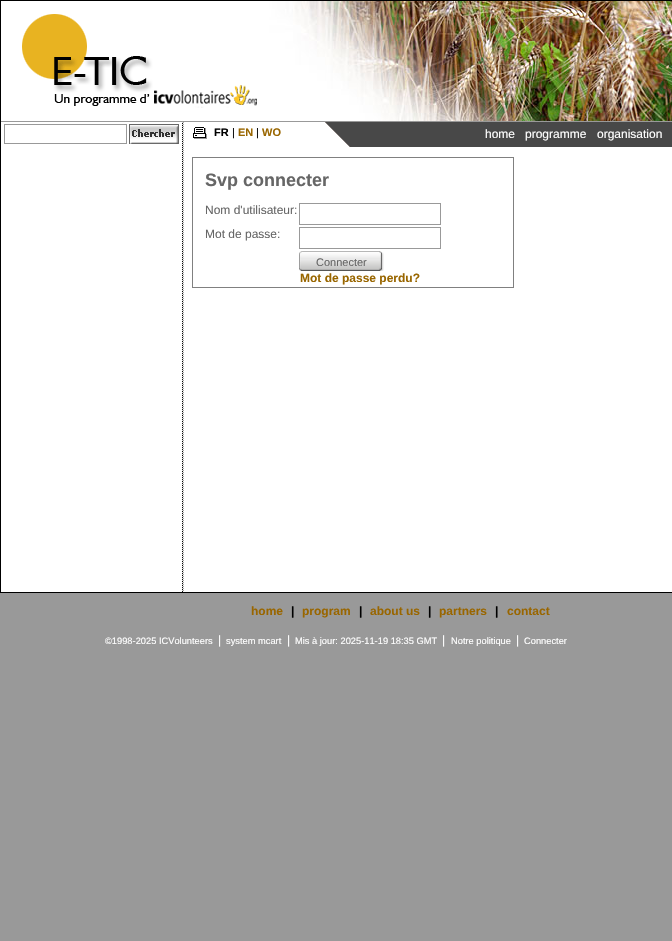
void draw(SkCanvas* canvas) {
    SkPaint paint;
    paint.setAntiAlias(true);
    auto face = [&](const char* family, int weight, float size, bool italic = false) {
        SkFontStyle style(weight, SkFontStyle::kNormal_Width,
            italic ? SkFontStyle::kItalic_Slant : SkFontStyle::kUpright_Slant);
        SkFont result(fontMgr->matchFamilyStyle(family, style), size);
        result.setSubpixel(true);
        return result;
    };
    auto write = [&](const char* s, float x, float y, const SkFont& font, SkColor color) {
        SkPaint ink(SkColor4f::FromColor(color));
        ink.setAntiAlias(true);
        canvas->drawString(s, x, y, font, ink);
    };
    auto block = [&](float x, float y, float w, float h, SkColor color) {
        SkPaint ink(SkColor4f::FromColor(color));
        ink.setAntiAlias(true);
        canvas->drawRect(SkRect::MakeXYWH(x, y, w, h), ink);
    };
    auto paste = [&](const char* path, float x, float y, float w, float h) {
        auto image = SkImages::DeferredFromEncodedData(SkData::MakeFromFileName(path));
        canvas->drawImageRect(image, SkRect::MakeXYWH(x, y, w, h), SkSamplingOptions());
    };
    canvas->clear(SkColorSetRGB(153, 153, 153));
    block(1, 122, 671, 470, SK_ColorWHITE);
    paint.setStyle(SkPaint::kStroke_Style);
    paint.setStrokeWidth(1);
    paint.setColor(SK_ColorBLACK);
    canvas->drawRect(SkRect::MakeXYWH(0.5f, 0.5f, 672, 592), paint);
    paste("pic1.png", 1, 1, 268, 120);
    paste("pic2.png", 269, 1, 403, 120);
    paint.setColor(SkColorSetRGB(153, 153, 153));
    canvas->drawRect(SkRect::MakeXYWH(4.5f, 124.5f, 122, 19), paint);
    paste("pic3.png", 129, 124, 50, 20);
    paste("pic4.png", 182, 122, 2, 470);
    paste("pic5.png", 193, 127, 14, 12);
    auto kFont1 = face("Liberation Sans", 700, 11);
    write("FR", 214, 136, kFont1, SK_ColorBLACK);
    auto kFont2 = face("Liberation Sans", 400, 11);
    write("|", 232, 136, kFont2, SK_ColorBLACK);
    write("EN", 238, 136, kFont1, SkColorSetRGB(153, 102, 0));
    write("|", 256, 136, kFont2, SK_ColorBLACK);
    write("WO", 262, 136, kFont1, SkColorSetRGB(153, 102, 0));
    paste("pic6.png", 325, 122, 25, 25);
    block(350, 122, 322, 25, SkColorSetRGB(72, 72, 72));
    auto kFont3 = face("Liberation Sans", 400, 12);
    write("home", 485, 138, kFont3, SK_ColorWHITE);
    write("programme", 525, 138, kFont3, SK_ColorWHITE);
    write("organisation", 597, 138, kFont3, SK_ColorWHITE);
    paint.setColor(SkColorSetRGB(128, 128, 128));
    canvas->drawRect(SkRect::MakeXYWH(192.5f, 157.5f, 321, 130), paint);
    auto kFont4 = face("Liberation Sans", 700, 18);
    write("Svp connecter", 205, 186, kFont4, SkColorSetRGB(102, 102, 102));
    write("Nom d'utilisateur:", 205, 214, kFont3, SkColorSetRGB(102, 102, 102));
    paint.setColor(SkColorSetRGB(153, 153, 153));
    canvas->drawRect(SkRect::MakeXYWH(299.5f, 203.5f, 141, 21), paint);
    write("Mot de passe:", 205, 238, kFont3, SkColorSetRGB(102, 102, 102));
    canvas->drawRect(SkRect::MakeXYWH(299.5f, 227.5f, 141, 21), paint);
    paste("pic7.png", 299, 251, 85, 20);
    write("Connecter", 316, 266, kFont2, SkColorSetRGB(102, 102, 102));
    auto kFont5 = face("Liberation Sans", 700, 12);
    write("Mot de passe perdu?", 300, 282, kFont5, SkColorSetRGB(153, 102, 0));
    write("home", 251, 615, kFont5, SkColorSetRGB(153, 102, 0));
    write("|", 291, 615, kFont5, SK_ColorBLACK);
    write("program", 302, 615, kFont5, SkColorSetRGB(153, 102, 0));
    write("|", 359, 615, kFont5, SK_ColorBLACK);
    write("about us", 370, 615, kFont5, SkColorSetRGB(153, 102, 0));
    write("|", 428, 615, kFont5, SK_ColorBLACK);
    write("partners", 439, 615, kFont5, SkColorSetRGB(153, 102, 0));
    write("|", 495, 615, kFont5, SK_ColorBLACK);
    write("contact", 507, 615, kFont5, SkColorSetRGB(153, 102, 0));
    auto kFont6 = face("Liberation Sans", 400, 9.3f);
    write("©1998-2025 ICVolunteers", 105, 644, kFont6, SK_ColorWHITE);
    write("|", 218, 644, kFont3, SK_ColorWHITE);
    write("system mcart", 226, 644, kFont6, SK_ColorWHITE);
    write("|", 287, 644, kFont3, SK_ColorWHITE);
    write("Mis à jour: 2025-11-19 18:35 GMT", 295, 644, kFont6, SK_ColorWHITE);
    write("|", 442, 644, kFont3, SK_ColorWHITE);
    write("Notre politique", 451, 644, kFont6, SK_ColorWHITE);
    write("|", 516, 644, kFont3, SK_ColorWHITE);
    write("Connecter", 524, 644, kFont6, SK_ColorWHITE);
}
